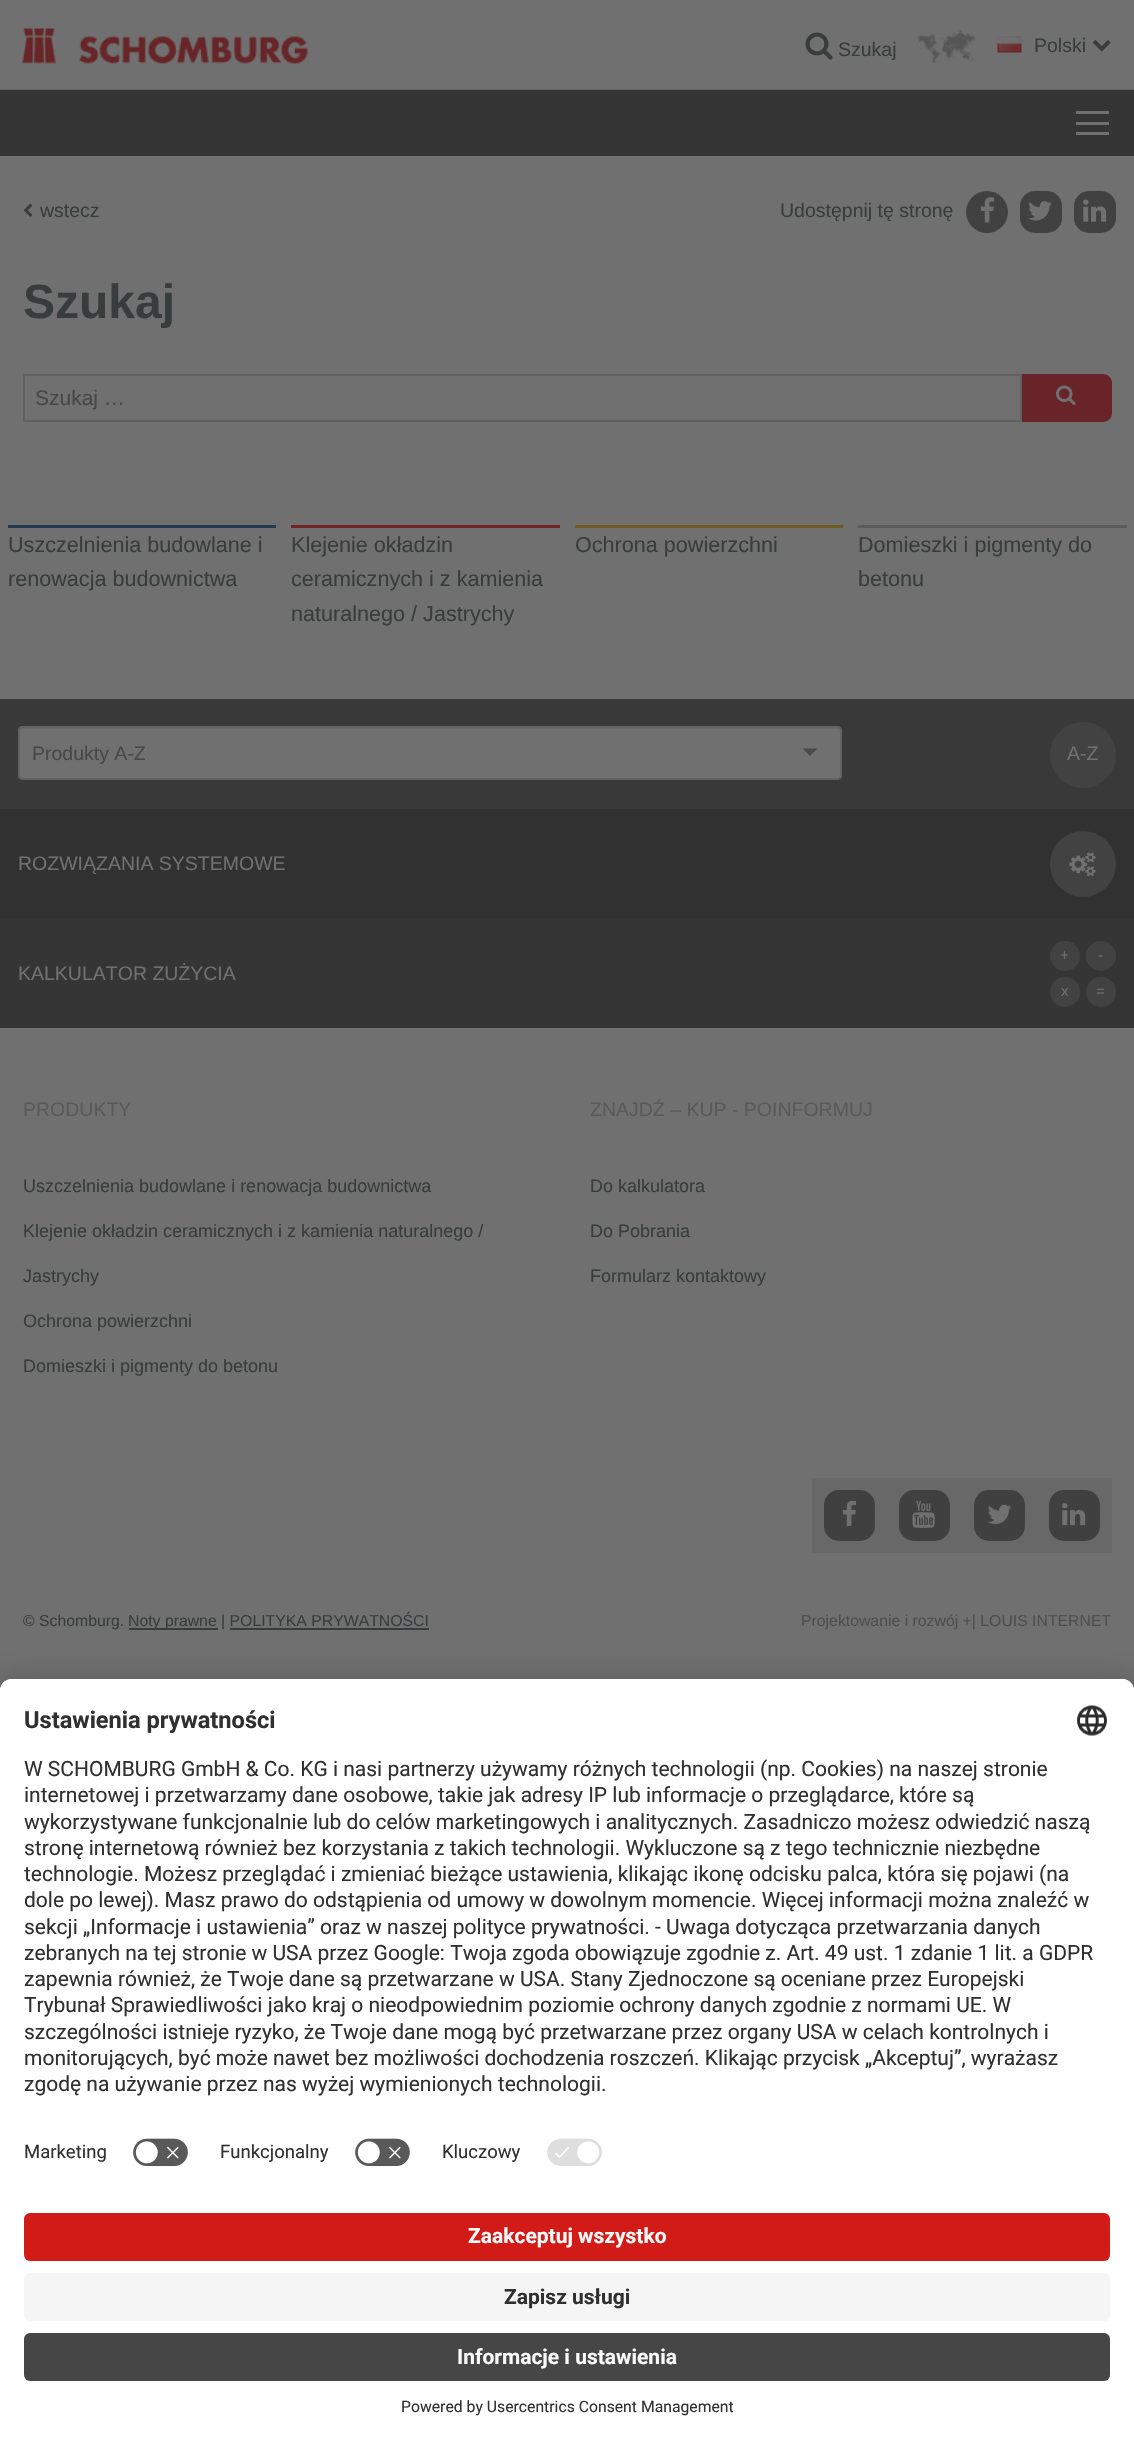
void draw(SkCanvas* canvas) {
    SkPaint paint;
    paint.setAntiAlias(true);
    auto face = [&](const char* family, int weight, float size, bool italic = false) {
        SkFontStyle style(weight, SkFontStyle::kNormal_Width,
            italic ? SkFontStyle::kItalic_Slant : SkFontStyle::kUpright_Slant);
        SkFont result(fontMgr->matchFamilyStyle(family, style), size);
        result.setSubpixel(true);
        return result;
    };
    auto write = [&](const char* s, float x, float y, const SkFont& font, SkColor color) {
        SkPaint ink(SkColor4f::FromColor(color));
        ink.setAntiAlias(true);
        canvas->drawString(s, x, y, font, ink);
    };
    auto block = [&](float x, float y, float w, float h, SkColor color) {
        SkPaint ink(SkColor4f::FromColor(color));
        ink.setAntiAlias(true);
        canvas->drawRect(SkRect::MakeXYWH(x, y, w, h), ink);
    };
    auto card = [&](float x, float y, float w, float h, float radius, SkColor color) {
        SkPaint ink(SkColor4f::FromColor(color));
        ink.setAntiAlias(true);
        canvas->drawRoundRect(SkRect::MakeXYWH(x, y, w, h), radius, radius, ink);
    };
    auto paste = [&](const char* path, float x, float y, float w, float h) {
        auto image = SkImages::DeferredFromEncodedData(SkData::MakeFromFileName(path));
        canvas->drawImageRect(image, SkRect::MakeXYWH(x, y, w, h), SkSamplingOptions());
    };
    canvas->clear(SkColorSetRGB(112, 112, 112));
    block(0, 89, 1134, 1, SkColorSetRGB(101, 101, 101));
    paste("pic1.png", 22, 28, 286, 36);
    paste("pic2.png", 805, 32, 28, 28);
    auto kFont1 = face("Liberation Sans", 400, 19.5f);
    write("Szukaj", 838, 56, kFont1, SkColorSetRGB(56, 60, 60));
    paste("pic3.png", 916, 30, 59, 33);
    paste("pic4.png", 997, 36, 25, 17);
    write("Polski", 1034, 52, kFont1, SkColorSetRGB(56, 60, 60));
    paste("pic5.png", 1093, 40, 18, 12);
    block(0, 90, 1134, 66, SkColorSetRGB(53, 53, 53));
    block(1076, 111, 33, 3, SkColorSetRGB(112, 112, 112));
    block(1076, 122, 33, 3, SkColorSetRGB(112, 112, 112));
    block(1076, 132, 33, 3, SkColorSetRGB(112, 112, 112));
    paste("pic6.png", 23, 203, 10, 14);
    write("wstecz", 40, 217, kFont1, SkColorSetRGB(56, 60, 60));
    write("Udostępnij tę stronę", 780, 217, kFont1, SkColorSetRGB(56, 60, 60));
    paint.setColor(SkColorSetRGB(65, 65, 65));
    canvas->drawCircle(987, 212, 21, paint);
    paste("pic7.png", 980, 197, 14, 26);
    card(1020, 191, 42, 42, 15, SkColorSetRGB(65, 65, 65));
    paste("pic8.png", 1028, 201, 24, 20);
    card(1074, 191, 42, 42, 15, SkColorSetRGB(65, 65, 65));
    paste("pic9.png", 1083, 199, 24, 23);
    auto kFont2 = face("Liberation Sans", 700, 48);
    write("Szukaj", 23, 318, kFont2, SkColorSetRGB(56, 60, 60));
    paint.setStyle(SkPaint::kStroke_Style);
    paint.setStrokeWidth(2);
    paint.setColor(SkColorSetRGB(97, 97, 97));
    canvas->drawRect(SkRect::MakeXYWH(24, 375, 997, 46), paint);
    auto kFont3 = face("Liberation Sans", 400, 21);
    write("Szukaj …", 35, 405, kFont3, SkColorSetRGB(71, 71, 71));
    paint.setStyle(SkPaint::kFill_Style);
    paint.setColor(SkColorSetRGB(104, 36, 40));
    canvas->drawPath(SkPathBuilder().moveTo(1022, 374).lineTo(1103, 374).cubicTo(1108, 374, 1112, 378, 1112, 383).lineTo(1112, 413).cubicTo(1112, 418, 1108, 422, 1103, 422).lineTo(1022, 422).close().detach(), paint);
    paste("pic10.png", 1056, 385, 20, 20);
    block(8, 525, 268, 3, SkColorSetRGB(36, 60, 83));
    auto kFont4 = face("Liberation Sans", 400, 21.6f);
    write("Uszczelnienia budowlane i", 8, 552, kFont4, SkColorSetRGB(56, 60, 60));
    write("renowacja budownictwa", 8, 586, kFont4, SkColorSetRGB(56, 60, 60));
    block(291, 525, 269, 3, SkColorSetRGB(112, 36, 36));
    write("Klejenie okładzin", 291, 552, kFont4, SkColorSetRGB(56, 60, 60));
    write("ceramicznych i z kamienia", 291, 586, kFont4, SkColorSetRGB(56, 60, 60));
    write("naturalnego / Jastrychy", 291, 621, kFont4, SkColorSetRGB(56, 60, 60));
    block(575, 525, 268, 3, SkColorSetRGB(111, 92, 36));
    write("Ochrona powierzchni", 575, 552, kFont4, SkColorSetRGB(56, 60, 60));
    block(858, 525, 269, 3, SkColorSetRGB(92, 92, 92));
    write("Domieszki i pigmenty do", 858, 552, kFont4, SkColorSetRGB(56, 60, 60));
    write("betonu", 858, 586, kFont4, SkColorSetRGB(56, 60, 60));
    block(0, 699, 1134, 110, SkColorSetRGB(57, 57, 57));
    card(18, 726, 824, 54, 5, SkColorSetRGB(112, 112, 112));
    paint.setColor(SkColorSetRGB(105, 105, 105));
    canvas->drawPath(SkPathBuilder().moveTo(22, 729).lineTo(837, 729).cubicTo(839, 729, 840, 730, 840, 732).cubicTo(840, 730, 839, 728, 837, 728).lineTo(23, 728).cubicTo(21, 728, 20, 730, 20, 732).cubicTo(20, 730, 21, 729, 22, 729).close().detach(), paint);
    paint.setStyle(SkPaint::kStroke_Style);
    paint.setColor(SkColorSetRGB(98, 98, 98));
    canvas->drawRoundRect(SkRect::MakeXYWH(19, 727, 822, 52), 4, 4, paint);
    write("Produkty A-Z", 32, 760, kFont1, SkColorSetRGB(71, 71, 71));
    paint.setStyle(SkPaint::kFill_Style);
    paint.setColor(SkColorSetRGB(74, 74, 74));
    canvas->drawPath(SkPathBuilder().moveTo(802.5f, 748.5f).lineTo(817.5f, 748.5f).lineTo(810, 756).close().detach(), paint);
    paint.setColor(SkColorSetRGB(66, 66, 66));
    canvas->drawCircle(1083, 755, 33, paint);
    write("A-Z", 1067, 760, kFont1, SkColorSetRGB(112, 112, 112));
    block(0, 809, 1134, 109, SkColorSetRGB(49, 49, 49));
    write("ROZWIĄZANIA SYSTEMOWE", 18, 870, kFont1, SkColorSetRGB(112, 112, 112));
    canvas->drawCircle(1083, 864, 33, paint);
    paste("pic11.png", 1069, 852, 27, 25);
    block(0, 918, 1134, 110, SkColorSetRGB(53, 53, 53));
    write("KALKULATOR ZUŻYCIA", 18, 980, kFont1, SkColorSetRGB(112, 112, 112));
    canvas->drawCircle(1065, 956, 15, paint);
    auto kFont5 = face("Liberation Sans", 400, 15);
    write("+", 1060, 960, kFont5, SkColorSetRGB(112, 112, 112));
    canvas->drawCircle(1101, 956, 15, paint);
    write("-", 1098, 960, kFont5, SkColorSetRGB(112, 112, 112));
    canvas->drawCircle(1065, 992, 15, paint);
    write("x", 1061, 996, kFont5, SkColorSetRGB(112, 112, 112));
    canvas->drawCircle(1101, 992, 15, paint);
    write("=", 1096, 996, kFont5, SkColorSetRGB(112, 112, 112));
    write("PRODUKTY", 23, 1116, kFont1, SkColorSetRGB(89, 89, 89));
    auto kFont6 = face("Liberation Sans", 400, 18);
    write("Uszczelnienia budowlane i renowacja budownictwa", 23, 1192, kFont6, SkColorSetRGB(56, 60, 60));
    write("Klejenie okładzin ceramicznych i z kamienia naturalnego /", 23, 1237, kFont6, SkColorSetRGB(56, 60, 60));
    write("Jastrychy", 23, 1282, kFont6, SkColorSetRGB(56, 60, 60));
    write("Ochrona powierzchni", 23, 1327, kFont6, SkColorSetRGB(56, 60, 60));
    write("Domieszki i pigmenty do betonu", 23, 1372, kFont6, SkColorSetRGB(56, 60, 60));
    write("ZNAJDŹ – KUP - POINFORMUJ", 590, 1116, kFont1, SkColorSetRGB(89, 89, 89));
    write("Do kalkulatora", 590, 1192, kFont6, SkColorSetRGB(56, 60, 60));
    write("Do Pobrania", 590, 1237, kFont6, SkColorSetRGB(56, 60, 60));
    write("Formularz kontaktowy", 590, 1282, kFont6, SkColorSetRGB(56, 60, 60));
    block(812, 1478, 300, 75, SkColorSetRGB(104, 104, 104));
    card(824, 1490, 51, 51, 15, SkColorSetRGB(64, 64, 64));
    paste("pic12.png", 842, 1500, 14, 26);
    card(899, 1490, 51, 51, 15, SkColorSetRGB(64, 64, 64));
    paste("pic13.png", 912, 1500, 23, 28);
    card(974, 1490, 51, 51, 15, SkColorSetRGB(64, 64, 64));
    paste("pic14.png", 987, 1504, 25, 20);
    card(1049, 1490, 51, 51, 15, SkColorSetRGB(64, 64, 64));
    paste("pic15.png", 1062, 1503, 24, 23);
    auto kFont7 = face("Liberation Sans", 400, 15.8f);
    write("© Schomburg.", 23, 1626, kFont7, SkColorSetRGB(56, 60, 60));
    block(129, 1628, 89, 2, SkColorSetRGB(56, 60, 60));
    write("Noty prawne | POLITYKA PRYWATNOŚCI", 128, 1626, kFont7, SkColorSetRGB(56, 60, 60));
    block(230, 1628, 199, 2, SkColorSetRGB(56, 60, 60));
    write("Projektowanie i rozwój +| LOUIS INTERNET", 801, 1626, kFont7, SkColorSetRGB(78, 78, 78));
    paint.setColor(SkColorSetARGB(77, 0, 0, 0));
    paint.setMaskFilter(SkMaskFilter::MakeBlur(kNormal_SkBlurStyle, 21));
    canvas->drawRoundRect(SkRect::MakeXYWH(0, 1709, 1134, 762), 12, 12, paint);
    paint.setMaskFilter(nullptr);
    paint.setColor(SkColorSetARGB(56, 0, 0, 0));
    paint.setMaskFilter(SkMaskFilter::MakeBlur(kNormal_SkBlurStyle, 19.5f));
    canvas->drawRoundRect(SkRect::MakeXYWH(0, 1686, 1134, 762), 12, 12, paint);
    paint.setMaskFilter(nullptr);
    paint.setColor(SK_ColorWHITE);
    canvas->drawPath(SkPathBuilder().moveTo(12, 1679).lineTo(1122, 1679).cubicTo(1128.5f, 1679, 1134, 1684.5f, 1134, 1691).lineTo(1134, 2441).lineTo(0, 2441).lineTo(0, 1691).cubicTo(0, 1684.5f, 5.5f, 1679, 12, 1679).close().detach(), paint);
    canvas->drawPath(SkPathBuilder().moveTo(12, 1679).lineTo(1122, 1679).cubicTo(1128.5f, 1679, 1134, 1684.5f, 1134, 1691).lineTo(1134, 2195).lineTo(0, 2195).lineTo(0, 1691).cubicTo(0, 1684.5f, 5.5f, 1679, 12, 1679).close().detach(), paint);
    canvas->drawPath(SkPathBuilder().moveTo(12, 1679).lineTo(1122, 1679).cubicTo(1128.5f, 1679, 1134, 1684.5f, 1134, 1691).lineTo(1134, 2129).lineTo(0, 2129).lineTo(0, 1691).cubicTo(0, 1684.5f, 5.5f, 1679, 12, 1679).close().detach(), paint);
    auto kFont8 = face("Roboto", 700, 23.6f);
    write("Ustawienia prywatności", 24, 1728, kFont8, SkColorSetRGB(48, 48, 48));
    paste("pic16.png", 1077, 1705, 30, 31);
    auto kFont9 = face("Roboto", 400, 21);
    write("W SCHOMBURG GmbH & Co. KG i nasi partnerzy używamy różnych technologii (np. Cookies) na naszej stronie", 24, 1776, kFont9, SkColorSetRGB(48, 48, 48));
    write("internetowej i przetwarzamy dane osobowe, takie jak adresy IP lub informacje o przeglądarce, które są", 24, 1802, kFont9, SkColorSetRGB(48, 48, 48));
    write("wykorzystywane funkcjonalnie lub do celów marketingowych i analitycznych. Zasadniczo możesz odwiedzić naszą", 24, 1829, kFont9, SkColorSetRGB(48, 48, 48));
    write("stronę internetową również bez korzystania z takich technologii. Wykluczone są z tego technicznie niezbędne", 24, 1855, kFont9, SkColorSetRGB(48, 48, 48));
    write("technologie. Możesz przeglądać i zmieniać bieżące ustawienia, klikając ikonę odcisku palca, która się pojawi (na", 24, 1881, kFont9, SkColorSetRGB(48, 48, 48));
    write("dole po lewej). Masz prawo do odstąpienia od umowy w dowolnym momencie. Więcej informacji można znaleźć w", 24, 1907, kFont9, SkColorSetRGB(48, 48, 48));
    write("sekcji „Informacje i ustawienia” oraz w naszej polityce prywatności. - Uwaga dotycząca przetwarzania danych", 24, 1934, kFont9, SkColorSetRGB(48, 48, 48));
    write("zebranych na tej stronie w USA przez Google: Twoja zgoda obowiązuje zgodnie z. Art. 49 ust. 1 zdanie 1 lit. a GDPR", 24, 1960, kFont9, SkColorSetRGB(48, 48, 48));
    write("zapewnia również, że Twoje dane są przetwarzane w USA. Stany Zjednoczone są oceniane przez Europejski", 24, 1986, kFont9, SkColorSetRGB(48, 48, 48));
    write("Trybunał Sprawiedliwości jako kraj o nieodpowiednim poziomie ochrony danych zgodnie z normami UE. W", 24, 2012, kFont9, SkColorSetRGB(48, 48, 48));
    write("szczególności istnieje ryzyko, że Twoje dane mogą być przetwarzane przez organy USA w celach kontrolnych i", 24, 2039, kFont9, SkColorSetRGB(48, 48, 48));
    write("monitorujących, być może nawet bez możliwości dochodzenia roszczeń. Klikając przycisk „Akceptuj”, wyrażasz", 24, 2065, kFont9, SkColorSetRGB(48, 48, 48));
    write("zgodę na używanie przez nas wyżej wymienionych technologii.", 24, 2091, kFont9, SkColorSetRGB(48, 48, 48));
    auto kFont10 = face("Roboto", 400, 18.5f);
    write("Marketing", 24, 2158, kFont10, SkColorSetRGB(48, 48, 48));
    paste("pic17.png", 133, 2138, 55, 29);
    write("Funkcjonalny", 220, 2158, kFont10, SkColorSetRGB(48, 48, 48));
    paste("pic17.png", 355, 2138, 55, 29);
    write("Kluczowy", 442, 2158, kFont10, SkColorSetRGB(48, 48, 48));
    paste("pic18.png", 547, 2138, 55, 28);
    card(24, 2213, 1086, 48, 6, SkColorSetRGB(210, 26, 23));
    auto kFont11 = face("Roboto", 700, 21);
    write("Zaakceptuj wszystko", 468, 2243, kFont11, SkColorSetRGB(250, 250, 250));
    card(24, 2273, 1086, 48, 6, SkColorSetRGB(245, 245, 245));
    write("Zapisz usługi", 504, 2304, kFont11, SkColorSetRGB(48, 48, 48));
    card(24, 2333, 1086, 48, 6, SkColorSetRGB(70, 70, 70));
    write("Informacje i ustawienia", 457, 2364, kFont11, SkColorSetRGB(250, 250, 250));
    auto kFont12 = face("Roboto", 400, 15.75f);
    write("Powered by Usercentrics Consent Management", 401, 2412, kFont12, SkColorSetRGB(48, 48, 48));
}
